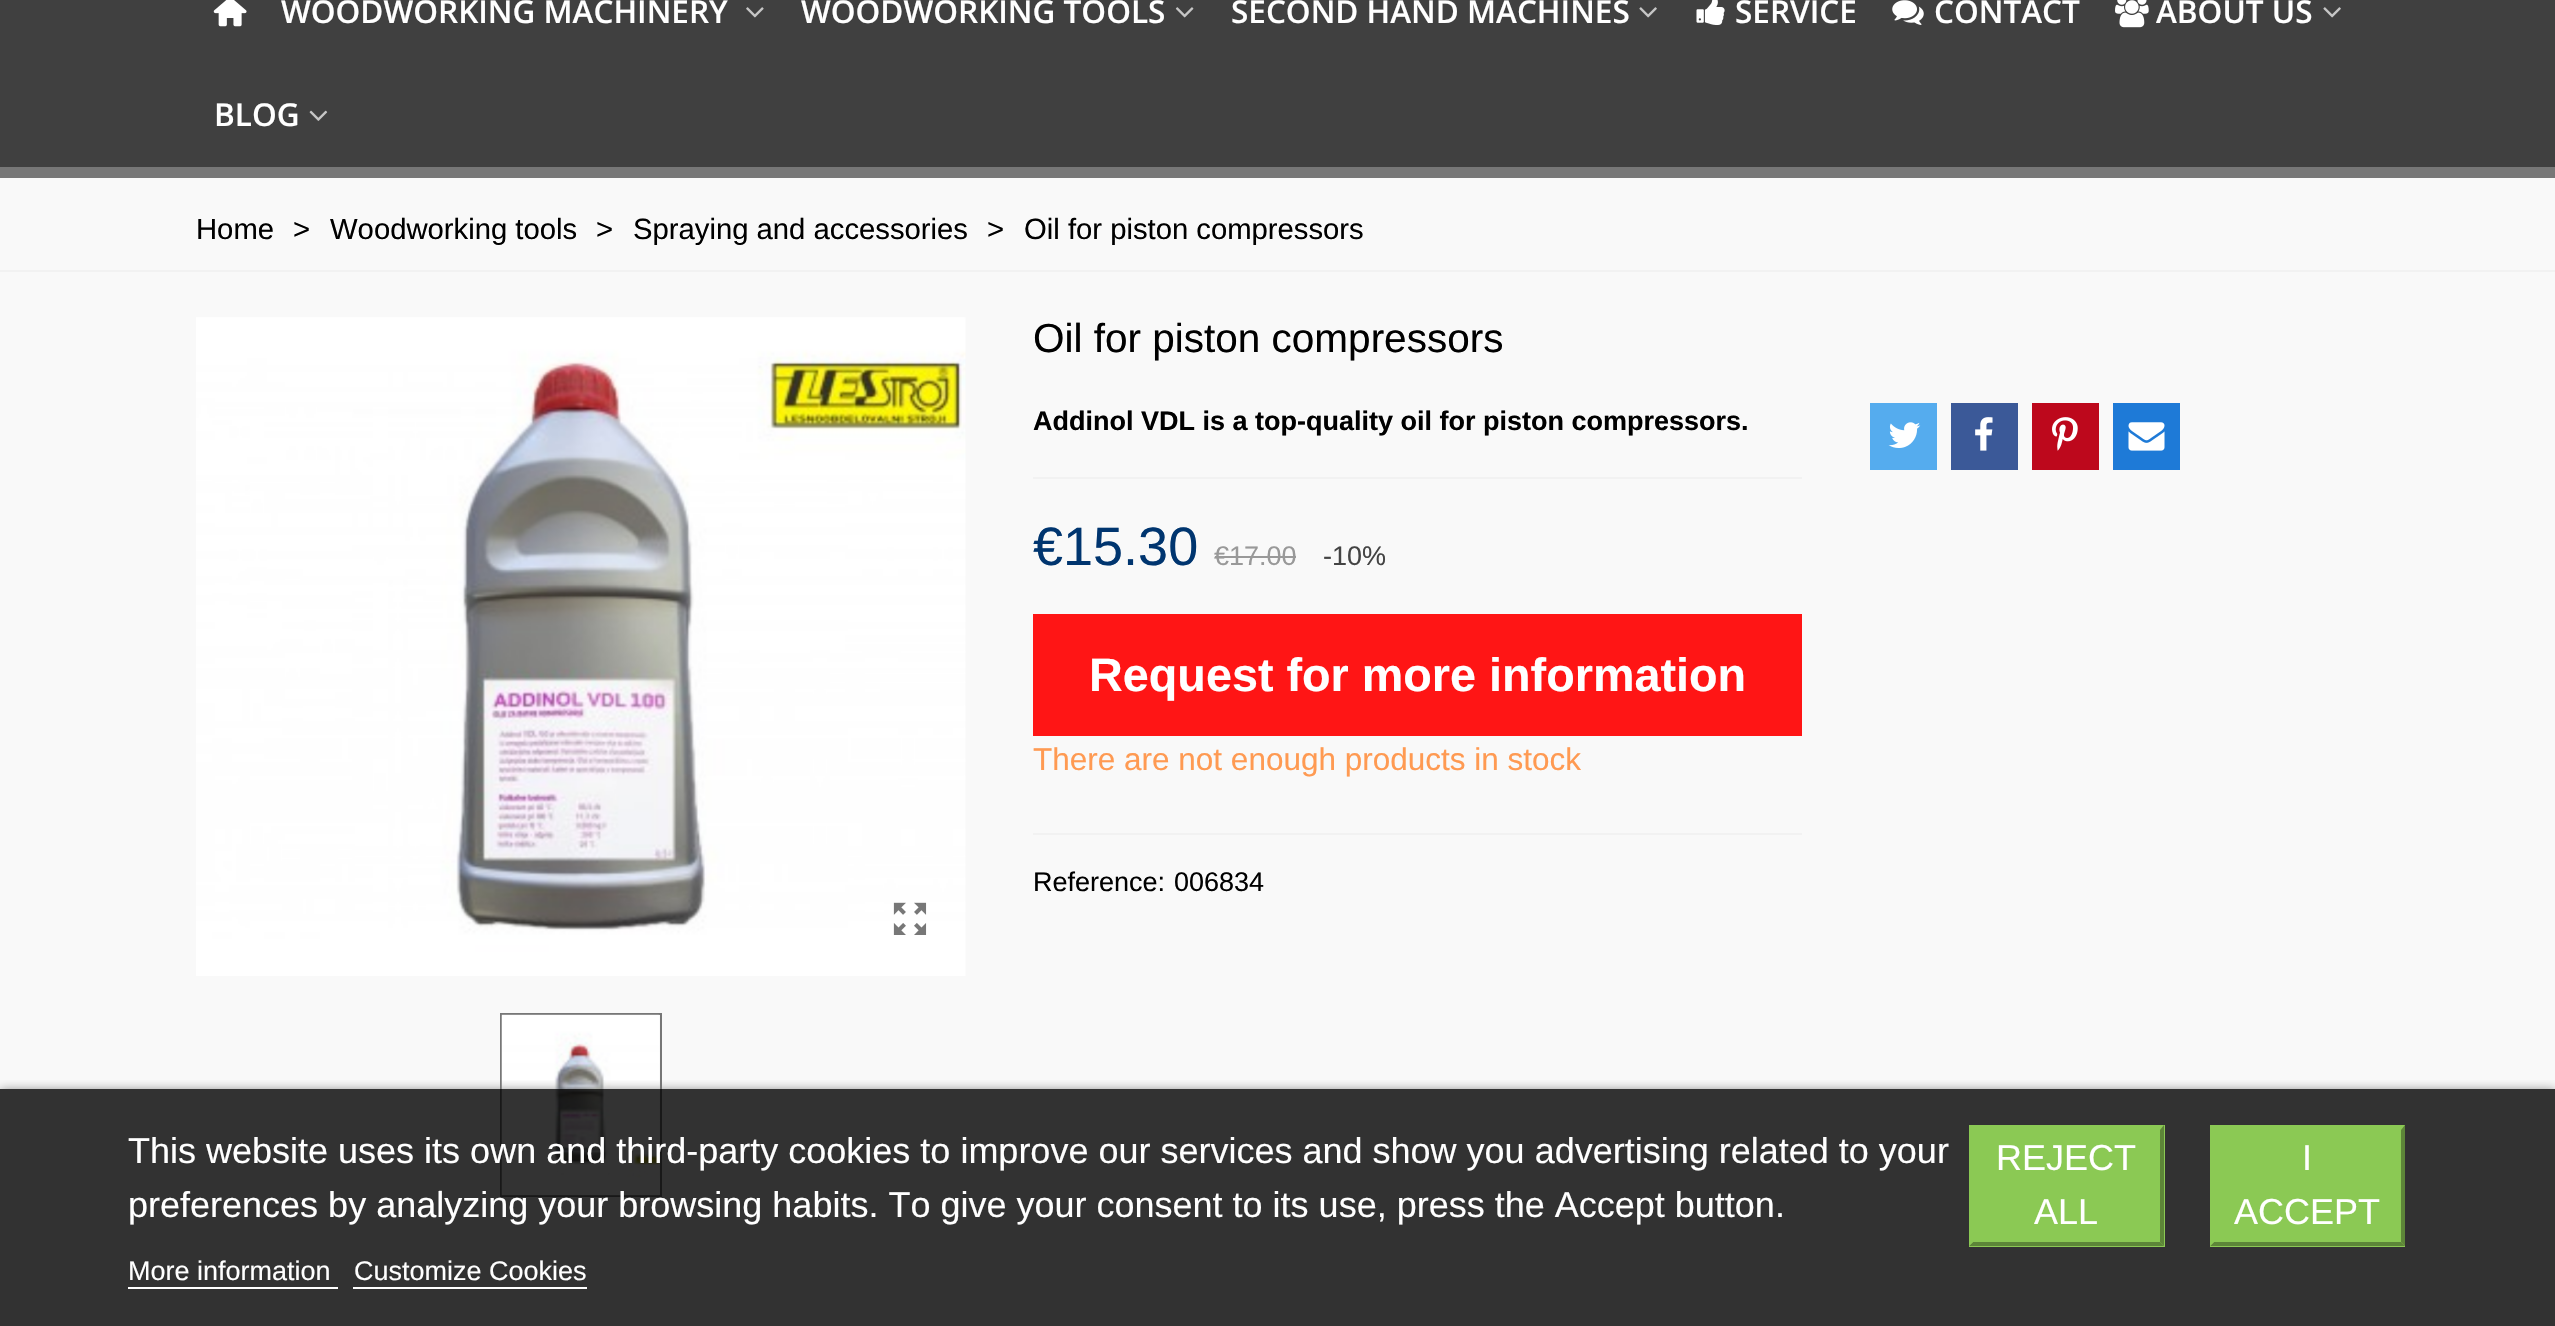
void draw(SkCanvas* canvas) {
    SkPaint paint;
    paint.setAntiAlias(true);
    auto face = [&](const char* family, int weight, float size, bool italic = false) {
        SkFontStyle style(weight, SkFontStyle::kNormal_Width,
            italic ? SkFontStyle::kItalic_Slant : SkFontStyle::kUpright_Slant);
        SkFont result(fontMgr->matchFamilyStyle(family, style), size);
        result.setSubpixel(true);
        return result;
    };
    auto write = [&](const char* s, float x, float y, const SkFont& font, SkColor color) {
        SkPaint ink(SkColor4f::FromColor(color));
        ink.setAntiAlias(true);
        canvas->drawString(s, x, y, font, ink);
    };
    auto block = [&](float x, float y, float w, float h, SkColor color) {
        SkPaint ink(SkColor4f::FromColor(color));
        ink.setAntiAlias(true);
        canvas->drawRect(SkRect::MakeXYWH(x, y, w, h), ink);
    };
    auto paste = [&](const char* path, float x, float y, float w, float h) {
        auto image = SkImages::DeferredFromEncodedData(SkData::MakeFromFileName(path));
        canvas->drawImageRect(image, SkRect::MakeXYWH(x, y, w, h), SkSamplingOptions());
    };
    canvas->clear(SkColorSetRGB(249, 249, 249));
    block(0, 167, 2555, 11, SkColorSetRGB(119, 119, 119));
    block(0, 0, 2555, 167, SkColorSetRGB(64, 64, 64));
    paste("pic1.png", 213, 0, 34, 27);
    auto kFont1 = face("Open Sans", 600, 31.5f);
    write("WOODWORKING MACHINERY", 281, 23, kFont1, SK_ColorWHITE);
    paste("pic2.png", 746, 7, 18, 11);
    write("WOODWORKING TOOLS", 801, 23, kFont1, SK_ColorWHITE);
    paste("pic3.png", 1175, 7, 19, 11);
    write("SECOND HAND MACHINES", 1231, 23, kFont1, SK_ColorWHITE);
    paste("pic4.png", 1639, 7, 18, 11);
    paste("pic5.png", 1696, 0, 29, 25);
    write("SERVICE", 1735, 23, kFont1, SK_ColorWHITE);
    paste("pic6.png", 1892, 0, 32, 25);
    write("CONTACT", 1934, 23, kFont1, SK_ColorWHITE);
    paste("pic7.png", 2115, 0, 34, 28);
    write("ABOUT US", 2156, 23, kFont1, SK_ColorWHITE);
    paste("pic4.png", 2323, 7, 18, 11);
    write("BLOG", 214, 126, kFont1, SK_ColorWHITE);
    paste("pic8.png", 309, 110, 19, 11);
    block(0, 270, 2555, 2, SkColorSetRGB(242, 242, 242));
    auto kFont2 = face("Liberation Sans", 400, 29.25f);
    write("Home", 196, 239, kFont2, SK_ColorBLACK);
    write(">", 293, 239, kFont2, SK_ColorBLACK);
    write("Woodworking tools", 330, 239, kFont2, SK_ColorBLACK);
    write(">", 596, 239, kFont2, SK_ColorBLACK);
    write("Spraying and accessories", 633, 239, kFont2, SK_ColorBLACK);
    write(">", 987, 239, kFont2, SK_ColorBLACK);
    write("Oil for piston compressors", 1024, 239, kFont2, SK_ColorBLACK);
    paste("pic9.png", 196, 317, 770, 659);
    paste("pic10.png", 893, 902, 34, 33);
    paint.setStyle(SkPaint::kStroke_Style);
    paint.setStrokeWidth(2);
    paint.setColor(SkColorSetRGB(119, 119, 119));
    canvas->drawRect(SkRect::MakeXYWH(501, 1014, 160, 182), paint);
    paste("pic11.png", 501, 1014, 159, 182);
    auto kFont3 = face("Liberation Sans", 400, 40.5f);
    write("Oil for piston compressors", 1033, 352, kFont3, SK_ColorBLACK);
    auto kFont4 = face("Liberation Sans", 700, 27);
    write("Addinol VDL is a top-quality oil for piston compressors.", 1033, 430, kFont4, SK_ColorBLACK);
    block(1033, 477, 769, 2, SkColorSetRGB(242, 242, 242));
    auto kFont5 = face("Liberation Sans", 400, 54);
    write("€15.30", 1033, 565, kFont5, SkColorSetRGB(0, 53, 111));
    auto kFont6 = face("Liberation Sans", 400, 27);
    write("€17.00", 1214, 565, kFont6, SkColorSetRGB(153, 153, 153));
    block(1215, 556, 81, 2, SkColorSetRGB(153, 153, 153));
    write("-10%", 1323, 565, kFont6, SkColorSetRGB(68, 68, 68));
    block(1033, 614, 769, 122, SkColorSetRGB(255, 21, 21));
    auto kFont7 = face("Liberation Sans", 700, 46.75f);
    write("Request for more information", 1089, 691, kFont7, SK_ColorWHITE);
    auto kFont8 = face("Liberation Sans", 400, 31.5f);
    write("There are not enough products in stock", 1033, 770, kFont8, SkColorSetRGB(255, 154, 82));
    block(1033, 833, 769, 2, SkColorSetRGB(242, 242, 242));
    write("Reference:", 1033, 891, kFont6, SK_ColorBLACK);
    write("006834", 1174, 891, kFont6, SK_ColorBLACK);
    block(1870, 403, 67, 67, SkColorSetRGB(85, 172, 238));
    paste("pic12.png", 1888, 422, 33, 26);
    block(1951, 403, 67, 67, SkColorSetRGB(59, 89, 152));
    paste("pic13.png", 1975, 417, 18, 34);
    block(2032, 403, 67, 67, SkColorSetRGB(189, 8, 28));
    paste("pic14.png", 2052, 417, 26, 34);
    block(2113, 403, 67, 67, SkColorSetRGB(30, 122, 215));
    paste("pic15.png", 2128, 422, 37, 29);
    canvas->save();
    canvas->clipRect(SkRect::MakeXYWH(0, 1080, 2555, 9));
    paint.setStyle(SkPaint::kFill_Style);
    paint.setColor(SkColorSetRGB(112, 112, 112));
    paint.setMaskFilter(SkMaskFilter::MakeBlur(kNormal_SkBlurStyle, 5.5f));
    canvas->drawRect(SkRect::MakeXYWH(0, 1091, 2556, 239), paint);
    paint.setMaskFilter(nullptr);
    canvas->restore();
    block(0, 1089, 2555, 237, SkColorSetARGB(204, 0, 0, 0));
    auto kFont9 = face("Liberation Sans", 400, 36);
    write("This website uses its own and third-party cookies to improve our services and show you advertising related to your", 128, 1163, kFont9, SK_ColorWHITE);
    write("preferences by analyzing your browsing habits. To give your consent to its use, press the Accept button.", 128, 1217, kFont9, SK_ColorWHITE);
    write("More information", 128, 1280, kFont6, SK_ColorWHITE);
    block(128, 1287, 210, 2, SK_ColorWHITE);
    write("Customize Cookies", 354, 1280, kFont6, SK_ColorWHITE);
    block(353, 1287, 234, 2, SK_ColorWHITE);
    block(1969, 1125, 196, 122, SkColorSetRGB(139, 201, 84));
    paint.setColor(SkColorSetRGB(93, 134, 56));
    canvas->drawPath(SkPathBuilder().moveTo(2164, 1125).lineTo(2164, 1246).lineTo(2160, 1242).lineTo(2160, 1130).close().detach(), paint);
    canvas->drawPath(SkPathBuilder().moveTo(2164, 1246).lineTo(1969, 1246).lineTo(1973, 1242).lineTo(2160, 1242).close().detach(), paint);
    paint.setColor(SkColorSetRGB(139, 201, 84));
    canvas->drawPath(SkPathBuilder().moveTo(1969, 1246).lineTo(1969, 1125).lineTo(1973, 1130).lineTo(1973, 1242).close().detach(), paint);
    write("REJECT", 1996, 1170, kFont9, SK_ColorWHITE);
    write("ALL", 2034, 1224, kFont9, SK_ColorWHITE);
    block(2210, 1125, 195, 122, SkColorSetRGB(139, 201, 84));
    paint.setColor(SkColorSetRGB(93, 134, 56));
    canvas->drawPath(SkPathBuilder().moveTo(2405, 1125).lineTo(2405, 1246).lineTo(2401, 1242).lineTo(2401, 1130).close().detach(), paint);
    canvas->drawPath(SkPathBuilder().moveTo(2405, 1246).lineTo(2210, 1246).lineTo(2214, 1242).lineTo(2401, 1242).close().detach(), paint);
    paint.setColor(SkColorSetRGB(139, 201, 84));
    canvas->drawPath(SkPathBuilder().moveTo(2210, 1246).lineTo(2210, 1125).lineTo(2214, 1130).lineTo(2214, 1242).close().detach(), paint);
    write("I", 2302, 1170, kFont9, SK_ColorWHITE);
    write("ACCEPT", 2234, 1224, kFont9, SK_ColorWHITE);
}
